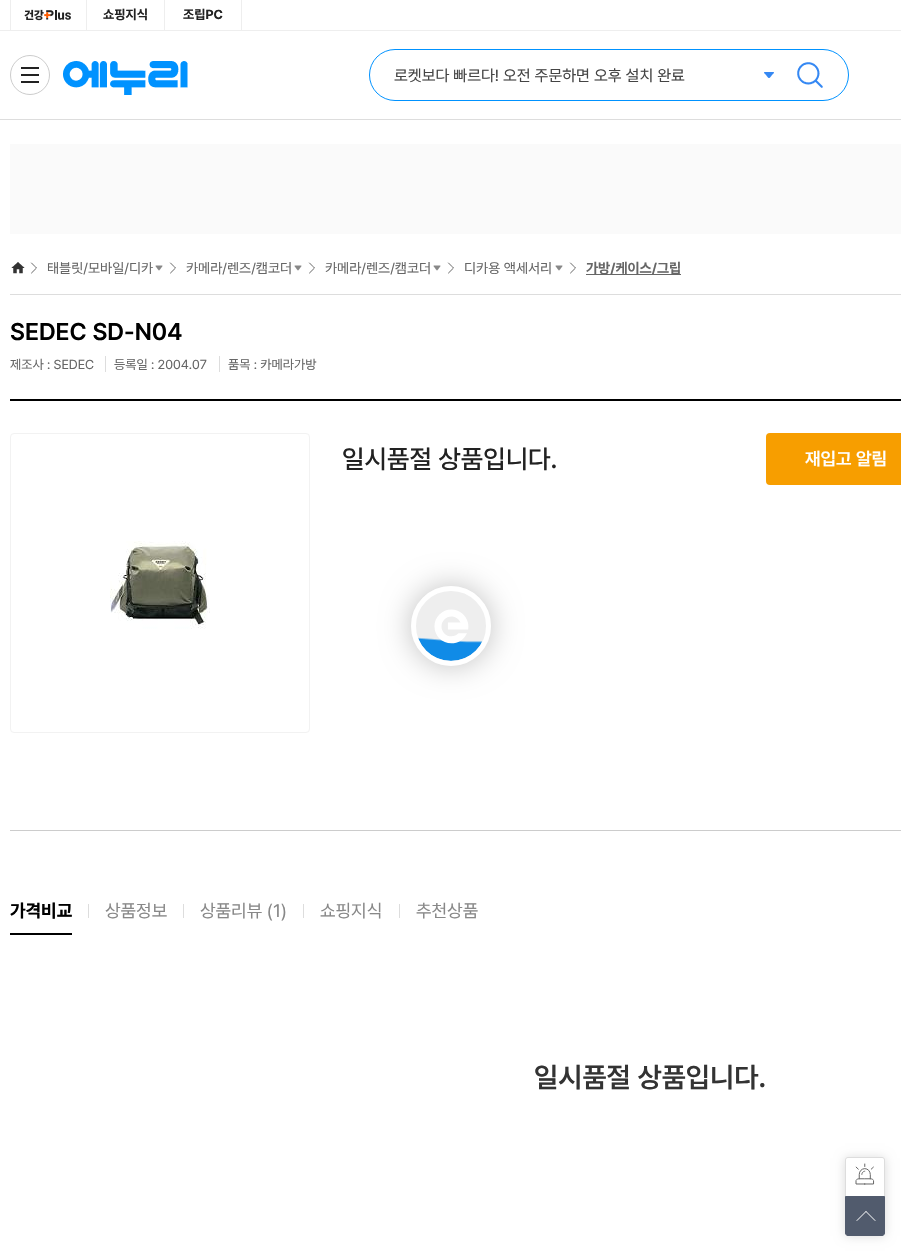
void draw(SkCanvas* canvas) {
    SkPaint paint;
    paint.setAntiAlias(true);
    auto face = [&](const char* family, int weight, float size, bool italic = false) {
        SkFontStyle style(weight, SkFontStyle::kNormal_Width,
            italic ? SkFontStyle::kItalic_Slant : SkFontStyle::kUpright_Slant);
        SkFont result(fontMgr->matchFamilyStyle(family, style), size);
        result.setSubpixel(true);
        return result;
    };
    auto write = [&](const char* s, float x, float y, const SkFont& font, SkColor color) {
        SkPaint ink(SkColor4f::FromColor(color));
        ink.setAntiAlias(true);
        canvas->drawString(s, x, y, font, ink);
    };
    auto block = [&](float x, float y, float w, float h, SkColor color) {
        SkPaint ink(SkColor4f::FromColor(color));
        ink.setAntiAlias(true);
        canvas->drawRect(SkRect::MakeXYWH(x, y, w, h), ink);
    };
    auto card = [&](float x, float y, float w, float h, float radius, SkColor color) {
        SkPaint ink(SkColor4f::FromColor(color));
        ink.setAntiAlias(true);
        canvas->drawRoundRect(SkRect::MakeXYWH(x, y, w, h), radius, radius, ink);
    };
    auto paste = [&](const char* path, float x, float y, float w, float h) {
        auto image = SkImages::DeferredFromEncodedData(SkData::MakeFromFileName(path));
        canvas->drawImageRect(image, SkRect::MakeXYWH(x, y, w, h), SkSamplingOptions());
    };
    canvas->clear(SK_ColorWHITE);
    block(0, 119, 901, 1, SkColorSetRGB(221, 221, 221));
    block(0, 30, 901, 1, SkColorSetRGB(238, 238, 238));
    block(10, 0, 1, 30, SkColorSetRGB(238, 238, 238));
    block(86, 0, 1, 30, SkColorSetRGB(238, 238, 238));
    paste("pic1.png", 24, 9, 47, 12);
    block(164, 0, 1, 30, SkColorSetRGB(238, 238, 238));
    auto kFont1 = face("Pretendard", 700, 13);
    write("쇼핑지식", 103, 19, kFont1, SkColorSetRGB(34, 34, 34));
    block(241, 0, 1, 30, SkColorSetRGB(238, 238, 238));
    write("조립PC", 183, 19, kFont1, SkColorSetRGB(34, 34, 34));
    paint.setStyle(SkPaint::kStroke_Style);
    paint.setStrokeWidth(1);
    paint.setColor(SkColorSetRGB(204, 204, 204));
    canvas->drawCircle(30, 75, 19.5f, paint);
    block(21, 67, 18, 2, SkColorSetRGB(34, 34, 34));
    block(21, 74, 18, 2, SkColorSetRGB(34, 34, 34));
    block(21, 81, 18, 2, SkColorSetRGB(34, 34, 34));
    paste("pic2.png", 63, 61, 125, 34);
    paint.setColor(SkColorSetRGB(0, 146, 255));
    canvas->drawRoundRect(SkRect::MakeXYWH(369.5f, 49.5f, 479, 51), 25.5f, 25.5f, paint);
    auto kFont2 = face("Pretendard", 400, 16);
    write("로켓보다 빠르다! 오전 주문하면 오후 설치 완료", 394, 81, kFont2, SkColorSetRGB(68, 68, 68));
    paste("pic3.png", 764, 72, 10, 6);
    paste("pic4.png", 797, 62, 26, 26);
    block(10, 144, 891, 90, SkColorSetRGB(250, 250, 250));
    block(10, 294, 891, 1, SkColorSetRGB(221, 221, 221));
    paste("pic5.png", 11, 262, 14, 12);
    paste("pic6.png", 30, 262, 7, 12);
    auto kFont3 = face("Pretendard", 400, 14);
    write("태블릿/모바일/디카", 47, 273, kFont3, SkColorSetRGB(102, 102, 102));
    paste("pic7.png", 155, 265, 8, 6);
    paste("pic6.png", 169, 262, 7, 12);
    write("카메라/렌즈/캠코더", 186, 273, kFont3, SkColorSetRGB(102, 102, 102));
    paste("pic7.png", 294, 265, 8, 6);
    paste("pic6.png", 308, 262, 7, 12);
    write("카메라/렌즈/캠코더", 325, 273, kFont3, SkColorSetRGB(102, 102, 102));
    paste("pic7.png", 433, 265, 8, 6);
    paste("pic6.png", 447, 262, 7, 12);
    write("디카용 액세서리", 464, 273, kFont3, SkColorSetRGB(102, 102, 102));
    paste("pic7.png", 555, 265, 8, 6);
    paste("pic6.png", 569, 262, 7, 12);
    block(586, 274, 95, 1, SkColorSetRGB(102, 102, 102));
    auto kFont4 = face("Pretendard", 700, 14);
    write("가방/케이스/그립", 586, 273, kFont4, SkColorSetRGB(102, 102, 102));
    block(10, 399, 891, 2, SK_ColorBLACK);
    auto kFont5 = face("Pretendard", 600, 24);
    write("SEDEC SD-N04", 10, 340, kFont5, SK_ColorBLACK);
    auto kFont6 = face("Pretendard", 400, 13);
    write("제조사 : SEDEC", 10, 369, kFont6, SkColorSetRGB(102, 102, 102));
    block(105, 356, 1, 16, SkColorSetRGB(221, 221, 221));
    write("등록일 : 2004.07", 114, 369, kFont6, SkColorSetRGB(102, 102, 102));
    block(219, 356, 1, 16, SkColorSetRGB(221, 221, 221));
    write("품목 : 카메라가방", 228, 369, kFont6, SkColorSetRGB(102, 102, 102));
    block(10, 830, 891, 1, SkColorSetRGB(204, 204, 204));
    paste("pic8.png", 110, 541, 100, 88);
    paint.setColor(SkColorSetRGB(242, 242, 242));
    canvas->drawRoundRect(SkRect::MakeXYWH(10.5f, 433.5f, 299, 299), 3.5f, 3.5f, paint);
    auto kFont7 = face("Pretendard", 500, 26);
    write("일시품절 상품입니다.", 342, 468, kFont7, SkColorSetRGB(34, 34, 34));
    card(766, 433, 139, 52, 4, SkColorSetRGB(247, 158, 0));
    auto kFont8 = face("Pretendard", 600, 18);
    write("재입고 알림", 805, 465, kFont8, SK_ColorWHITE);
    auto kFont9 = face("Pretendard", 700, 18);
    write("가격비교", 10, 917, kFont9, SK_ColorBLACK);
    block(10, 933, 62, 2, SK_ColorBLACK);
    block(88, 904, 1, 14, SkColorSetRGB(221, 221, 221));
    auto kFont10 = face("Pretendard", 400, 18);
    write("상품정보", 105, 917, kFont10, SkColorSetRGB(136, 136, 136));
    block(183, 904, 1, 14, SkColorSetRGB(221, 221, 221));
    write("상품리뷰 (1)", 200, 917, kFont10, SkColorSetRGB(136, 136, 136));
    block(303, 904, 1, 14, SkColorSetRGB(221, 221, 221));
    write("쇼핑지식", 320, 917, kFont10, SkColorSetRGB(136, 136, 136));
    block(399, 904, 1, 14, SkColorSetRGB(221, 221, 221));
    write("추천상품", 416, 917, kFont10, SkColorSetRGB(136, 136, 136));
    auto kFont11 = face("Pretendard", 600, 28);
    write("일시품절 상품입니다.", 534, 1087, kFont11, SkColorSetRGB(51, 51, 51));
    paint.setStyle(SkPaint::kFill_Style);
    paint.setColor(SkColorSetARGB(38, 0, 0, 0));
    paint.setMaskFilter(SkMaskFilter::MakeBlur(kNormal_SkBlurStyle, 5));
    canvas->drawRect(SkRect::MakeXYWH(845, 1158, 40, 78), paint);
    paint.setMaskFilter(nullptr);
    paint.setColor(SK_ColorWHITE);
    canvas->drawPath(SkPathBuilder().moveTo(848, 1157.5f).lineTo(882, 1157.5f).cubicTo(883.5f, 1157.5f, 884.5f, 1158.5f, 884.5f, 1160).lineTo(884.5f, 1196.5f).lineTo(845.5f, 1196.5f).lineTo(845.5f, 1160).cubicTo(845.5f, 1158.5f, 846.5f, 1157.5f, 848, 1157.5f).close().detach(), paint);
    paint.setStyle(SkPaint::kStroke_Style);
    paint.setColor(SkColorSetRGB(221, 221, 221));
    canvas->drawPath(SkPathBuilder().moveTo(848, 1157.5f).lineTo(882, 1157.5f).cubicTo(883.5f, 1157.5f, 884.5f, 1158.5f, 884.5f, 1160).lineTo(884.5f, 1196.5f).lineTo(845.5f, 1196.5f).lineTo(845.5f, 1160).cubicTo(845.5f, 1158.5f, 846.5f, 1157.5f, 848, 1157.5f).close().detach(), paint);
    paste("pic9.png", 855, 1163, 20, 22);
    paint.setStyle(SkPaint::kFill_Style);
    paint.setColor(SkColorSetRGB(81, 91, 109));
    canvas->drawPath(SkPathBuilder().moveTo(845.5f, 1196.5f).lineTo(884.5f, 1196.5f).lineTo(884.5f, 1233).cubicTo(884.5f, 1234.5f, 883.5f, 1235.5f, 882, 1235.5f).lineTo(848, 1235.5f).cubicTo(846.5f, 1235.5f, 845.5f, 1234.5f, 845.5f, 1233).close().detach(), paint);
    paint.setStyle(SkPaint::kStroke_Style);
    canvas->drawPath(SkPathBuilder().moveTo(845.5f, 1196.5f).lineTo(884.5f, 1196.5f).lineTo(884.5f, 1233).cubicTo(884.5f, 1234.5f, 883.5f, 1235.5f, 882, 1235.5f).lineTo(848, 1235.5f).cubicTo(846.5f, 1235.5f, 845.5f, 1234.5f, 845.5f, 1233).close().detach(), paint);
    paste("pic10.png", 856, 1211, 20, 10);
    paint.setStyle(SkPaint::kFill_Style);
    paint.setColor(SkColorSetARGB(64, 0, 0, 0));
    paint.setMaskFilter(SkMaskFilter::MakeBlur(kNormal_SkBlurStyle, 15));
    canvas->drawRoundRect(SkRect::MakeXYWH(411, 586, 80, 80), 40, 40, paint);
    paint.setMaskFilter(nullptr);
    paint.setColor(SkColorSetRGB(238, 238, 238));
    canvas->drawCircle(451, 626, 40, paint);
    paste("pic11.png", 418, 609, 65, 52);
    paint.setStyle(SkPaint::kStroke_Style);
    paint.setStrokeWidth(5);
    paint.setColor(SK_ColorWHITE);
    canvas->drawCircle(451, 626, 37.5f, paint);
}
